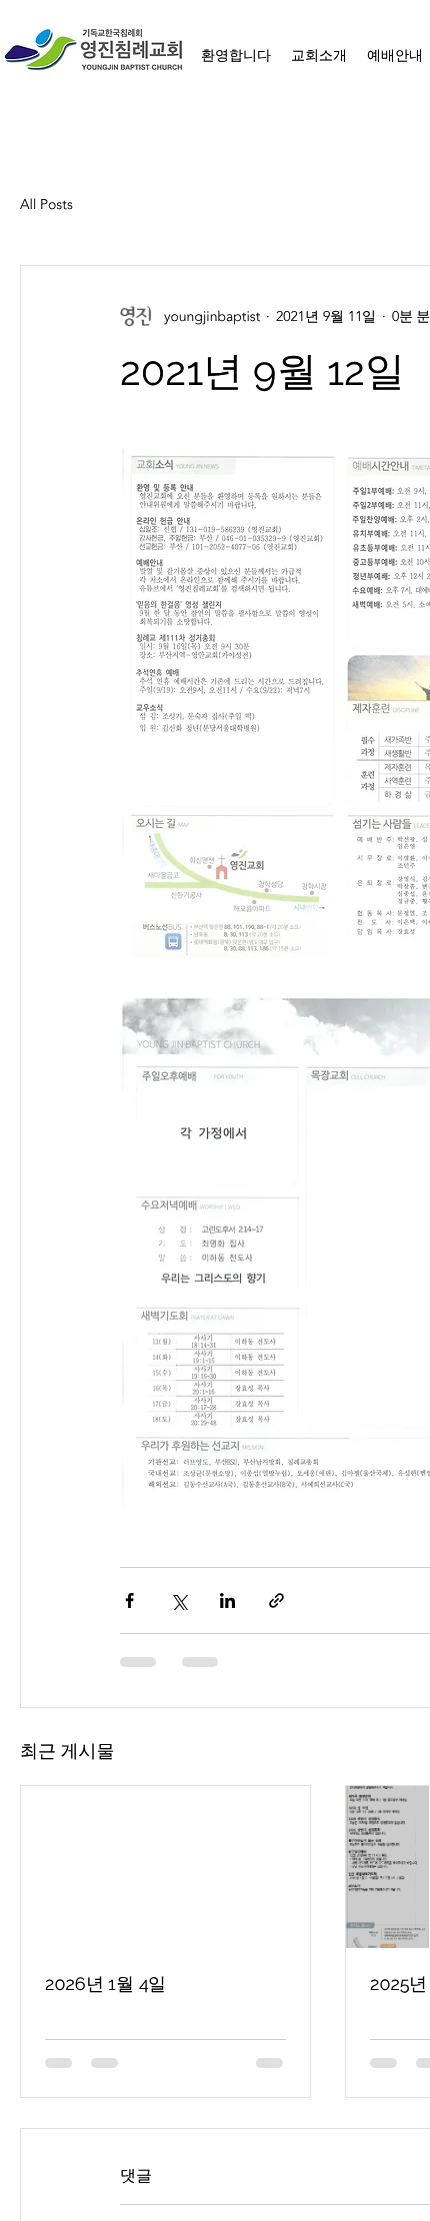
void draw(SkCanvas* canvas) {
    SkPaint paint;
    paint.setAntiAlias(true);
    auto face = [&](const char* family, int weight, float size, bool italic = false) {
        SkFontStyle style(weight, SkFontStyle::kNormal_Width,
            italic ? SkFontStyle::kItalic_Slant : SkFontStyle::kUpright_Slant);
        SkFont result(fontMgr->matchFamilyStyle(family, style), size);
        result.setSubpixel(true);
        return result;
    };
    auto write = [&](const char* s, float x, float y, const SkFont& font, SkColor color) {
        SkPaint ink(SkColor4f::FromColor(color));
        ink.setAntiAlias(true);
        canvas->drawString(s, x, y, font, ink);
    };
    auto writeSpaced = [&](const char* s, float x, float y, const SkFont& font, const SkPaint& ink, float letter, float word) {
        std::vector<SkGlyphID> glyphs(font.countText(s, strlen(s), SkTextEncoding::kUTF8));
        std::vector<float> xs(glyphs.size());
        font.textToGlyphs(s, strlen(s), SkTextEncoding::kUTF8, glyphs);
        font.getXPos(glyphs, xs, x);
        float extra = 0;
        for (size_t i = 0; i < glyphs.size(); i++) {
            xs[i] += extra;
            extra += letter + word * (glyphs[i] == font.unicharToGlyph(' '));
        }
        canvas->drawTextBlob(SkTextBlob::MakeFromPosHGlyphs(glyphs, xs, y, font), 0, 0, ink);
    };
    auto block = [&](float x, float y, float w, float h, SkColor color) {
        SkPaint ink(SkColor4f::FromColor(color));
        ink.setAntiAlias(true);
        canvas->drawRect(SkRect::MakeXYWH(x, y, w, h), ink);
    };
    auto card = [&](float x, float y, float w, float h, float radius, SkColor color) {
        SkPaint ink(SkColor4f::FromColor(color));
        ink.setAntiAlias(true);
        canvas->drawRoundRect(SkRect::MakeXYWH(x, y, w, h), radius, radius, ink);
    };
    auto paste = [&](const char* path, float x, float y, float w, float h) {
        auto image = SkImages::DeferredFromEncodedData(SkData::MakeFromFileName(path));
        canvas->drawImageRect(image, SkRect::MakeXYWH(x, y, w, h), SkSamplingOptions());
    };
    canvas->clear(SK_ColorWHITE);
    paste("pic1.png", 3, 28, 179, 43);
    auto kFont1 = face("WenQuanYi Zen Hei", 500, 14);
    write("환영합니다", 201, 60, kFont1, SK_ColorBLACK);
    write("교회소개", 291, 60, kFont1, SK_ColorBLACK);
    write("예배안내", 367, 60, kFont1, SK_ColorBLACK);
    auto kFont2 = face("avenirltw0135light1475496", 300, 14);
    write("All Posts", 20, 209, kFont2, SK_ColorBLACK);
    paint.setStyle(SkPaint::kStroke_Style);
    paint.setStrokeWidth(1);
    paint.setColor(SkColorSetRGB(223, 223, 223));
    canvas->drawRect(SkRect::MakeXYWH(20.5f, 265.5f, 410, 1442), paint);
    paste("pic2.png", 120, 306, 32, 21);
    write("youngjinbaptist", 164, 321, kFont2, SK_ColorBLACK);
    write("·", 266, 321, kFont2, SK_ColorBLACK);
    write("2021", 276, 321, kFont2, SK_ColorBLACK);
    write("년", 305, 321, kFont1, SK_ColorBLACK);
    write("9", 323, 321, kFont2, SK_ColorBLACK);
    write("월", 330, 321, kFont1, SK_ColorBLACK);
    write("11", 348, 321, kFont2, SK_ColorBLACK);
    write("일", 362, 321, kFont1, SK_ColorBLACK);
    write("·", 382, 321, kFont2, SK_ColorBLACK);
    write("0", 392, 321, kFont2, SK_ColorBLACK);
    paint.setStyle(SkPaint::kFill_Style);
    paint.setColor(SK_ColorBLACK);
    writeSpaced("분 분", 399, 321, kFont1, paint, 0, -1);
    auto kFont3 = face("Raleway", 400, 40);
    write("2021", 120, 385, kFont3, SK_ColorBLACK);
    auto kFont4 = face("WenQuanYi Zen Hei", 500, 40);
    write("년", 203, 385, kFont4, SK_ColorBLACK);
    write("9", 253, 385, kFont3, SK_ColorBLACK);
    write("월", 277, 385, kFont4, SK_ColorBLACK);
    write("12", 327, 385, kFont3, SK_ColorBLACK);
    write("일", 365, 385, kFont4, SK_ColorBLACK);
    paste("pic3.png", 122, 448, 308, 510);
    paste("pic4.png", 120, 996, 310, 511);
    block(120, 1567, 310, 1, SkColorSetRGB(204, 204, 204));
    paste("pic5.png", 125, 1593, 9, 15);
    paste("pic6.png", 173, 1595, 15, 15);
    paste("pic7.png", 220, 1593, 15, 15);
    paste("pic8.png", 269, 1593, 15, 15);
    block(120, 1633, 310, 1, SkColorSetRGB(204, 204, 204));
    card(120, 1657, 36, 10, 5, SkColorSetRGB(224, 224, 224));
    card(182, 1657, 36, 10, 5, SkColorSetRGB(224, 224, 224));
    auto kFont5 = face("WenQuanYi Zen Hei", 500, 18);
    writeSpaced("최근 게시물", 20, 1757, kFont5, paint, 0, -1);
    paint.setStyle(SkPaint::kStroke_Style);
    paint.setColor(SkColorSetRGB(223, 223, 223));
    canvas->drawRect(SkRect::MakeXYWH(20.5f, 1785.5f, 290, 312), paint);
    auto kFont6 = face("Raleway", 400, 18);
    write("2026", 45, 1990, kFont6, SK_ColorBLACK);
    write("년", 86, 1990, kFont5, SK_ColorBLACK);
    write("1", 108, 1990, kFont6, SK_ColorBLACK);
    write("월", 116, 1990, kFont5, SK_ColorBLACK);
    write("4", 139, 1990, kFont6, SK_ColorBLACK);
    write("일", 148, 1990, kFont5, SK_ColorBLACK);
    block(45, 2039, 241, 1, SkColorSetRGB(204, 204, 204));
    card(45, 2058, 27, 10, 5, SkColorSetRGB(224, 224, 224));
    card(91, 2058, 27, 10, 5, SkColorSetRGB(224, 224, 224));
    card(256, 2058, 27, 10, 5, SkColorSetRGB(224, 224, 224));
    canvas->drawRect(SkRect::MakeXYWH(345.5f, 1785.5f, 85, 312), paint);
    paste("pic9.png", 346, 1786, 83, 162);
    write("2025", 370, 1990, kFont6, SK_ColorBLACK);
    write("년", 409, 1990, kFont5, SK_ColorBLACK);
    block(370, 2039, 60, 1, SkColorSetRGB(204, 204, 204));
    card(370, 2058, 27, 10, 5, SkColorSetRGB(224, 224, 224));
    card(416, 2058, 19, 10, 5, SkColorSetRGB(224, 224, 224));
    canvas->drawRect(SkRect::MakeXYWH(20.5f, 2128.5f, 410, 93), paint);
    auto kFont7 = face("WenQuanYi Zen Hei", 500, 16);
    write("댓글", 120, 2181, kFont7, SK_ColorBLACK);
    block(120, 2204, 310, 1, SkColorSetRGB(204, 204, 204));
}
